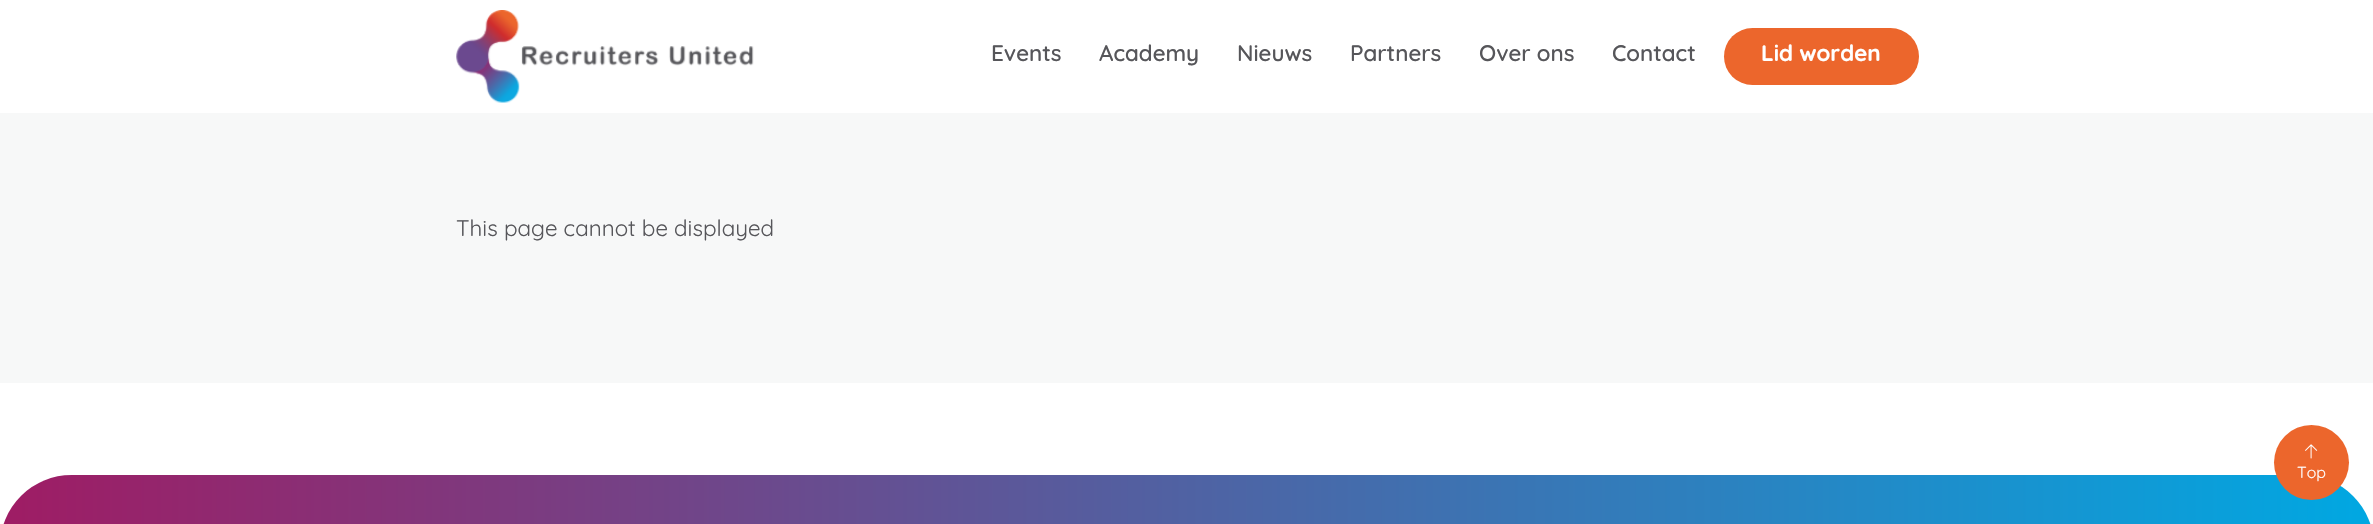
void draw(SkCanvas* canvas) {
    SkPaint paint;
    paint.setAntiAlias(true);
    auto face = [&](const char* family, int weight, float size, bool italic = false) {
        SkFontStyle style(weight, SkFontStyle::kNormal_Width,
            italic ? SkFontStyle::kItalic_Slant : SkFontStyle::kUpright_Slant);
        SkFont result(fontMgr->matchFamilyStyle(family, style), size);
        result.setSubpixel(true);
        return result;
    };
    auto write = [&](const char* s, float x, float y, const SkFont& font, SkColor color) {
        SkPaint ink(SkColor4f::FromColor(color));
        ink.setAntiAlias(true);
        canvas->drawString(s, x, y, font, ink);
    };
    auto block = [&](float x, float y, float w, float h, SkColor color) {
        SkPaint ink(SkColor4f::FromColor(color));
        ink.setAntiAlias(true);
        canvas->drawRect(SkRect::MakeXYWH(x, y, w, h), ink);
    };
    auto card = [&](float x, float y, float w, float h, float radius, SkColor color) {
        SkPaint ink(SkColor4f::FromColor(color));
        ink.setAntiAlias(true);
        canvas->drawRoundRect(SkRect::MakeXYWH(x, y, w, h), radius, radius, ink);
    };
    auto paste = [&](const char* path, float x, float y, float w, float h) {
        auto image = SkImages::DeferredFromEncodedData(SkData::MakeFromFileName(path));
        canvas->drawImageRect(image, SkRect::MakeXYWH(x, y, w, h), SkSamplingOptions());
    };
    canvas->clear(SK_ColorWHITE);
    paste("pic1.png", 456, 10, 298, 93);
    auto kFont1 = face("Quicksand", 500, 22.5f);
    write("Events", 991, 61, kFont1, SkColorSetRGB(86, 86, 90));
    write("Academy", 1099, 61, kFont1, SkColorSetRGB(86, 86, 90));
    write("Nieuws", 1237, 61, kFont1, SkColorSetRGB(86, 86, 90));
    write("Partners", 1350, 61, kFont1, SkColorSetRGB(86, 86, 90));
    write("Over ons", 1479, 61, kFont1, SkColorSetRGB(86, 86, 90));
    write("Contact", 1612, 61, kFont1, SkColorSetRGB(86, 86, 90));
    card(1724, 28, 195, 57, 28.5f, SkColorSetRGB(236, 102, 44));
    auto kFont2 = face("Quicksand", 700, 22.5f);
    write("Lid worden", 1761, 61, kFont2, SK_ColorWHITE);
    block(0, 113, 2373, 270, SkColorSetRGB(247, 248, 248));
    auto kFont3 = face("Quicksand", 400, 22.5f);
    write("This page cannot be displayed", 456, 236, kFont3, SkColorSetRGB(86, 86, 90));
    {
        const SkColor colors[] = {SkColorSetRGB(159, 28, 100), SkColorSetRGB(0, 168, 226)};
        const float stops[] = {0, 1};
        const SkPoint ends[] = {{0, 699}, {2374, 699}};
        paint.setShader(SkGradientShader::MakeLinear(ends, colors, stops, 2, SkTileMode::kClamp));
        paint.setAlpha(255);
    }
    canvas->drawRoundRect(SkRect::MakeXYWH(0, 475, 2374, 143), 94, 94, paint);
    paint.setShader(nullptr);
    paint.setColor(SkColorSetRGB(236, 102, 44));
    canvas->drawCircle(2311.5f, 462.5f, 37.5f, paint);
    paste("pic2.png", 2305, 444, 13, 15);
    auto kFont4 = face("Quicksand", 400, 16);
    write("Top", 2297, 478, kFont4, SK_ColorWHITE);
}
